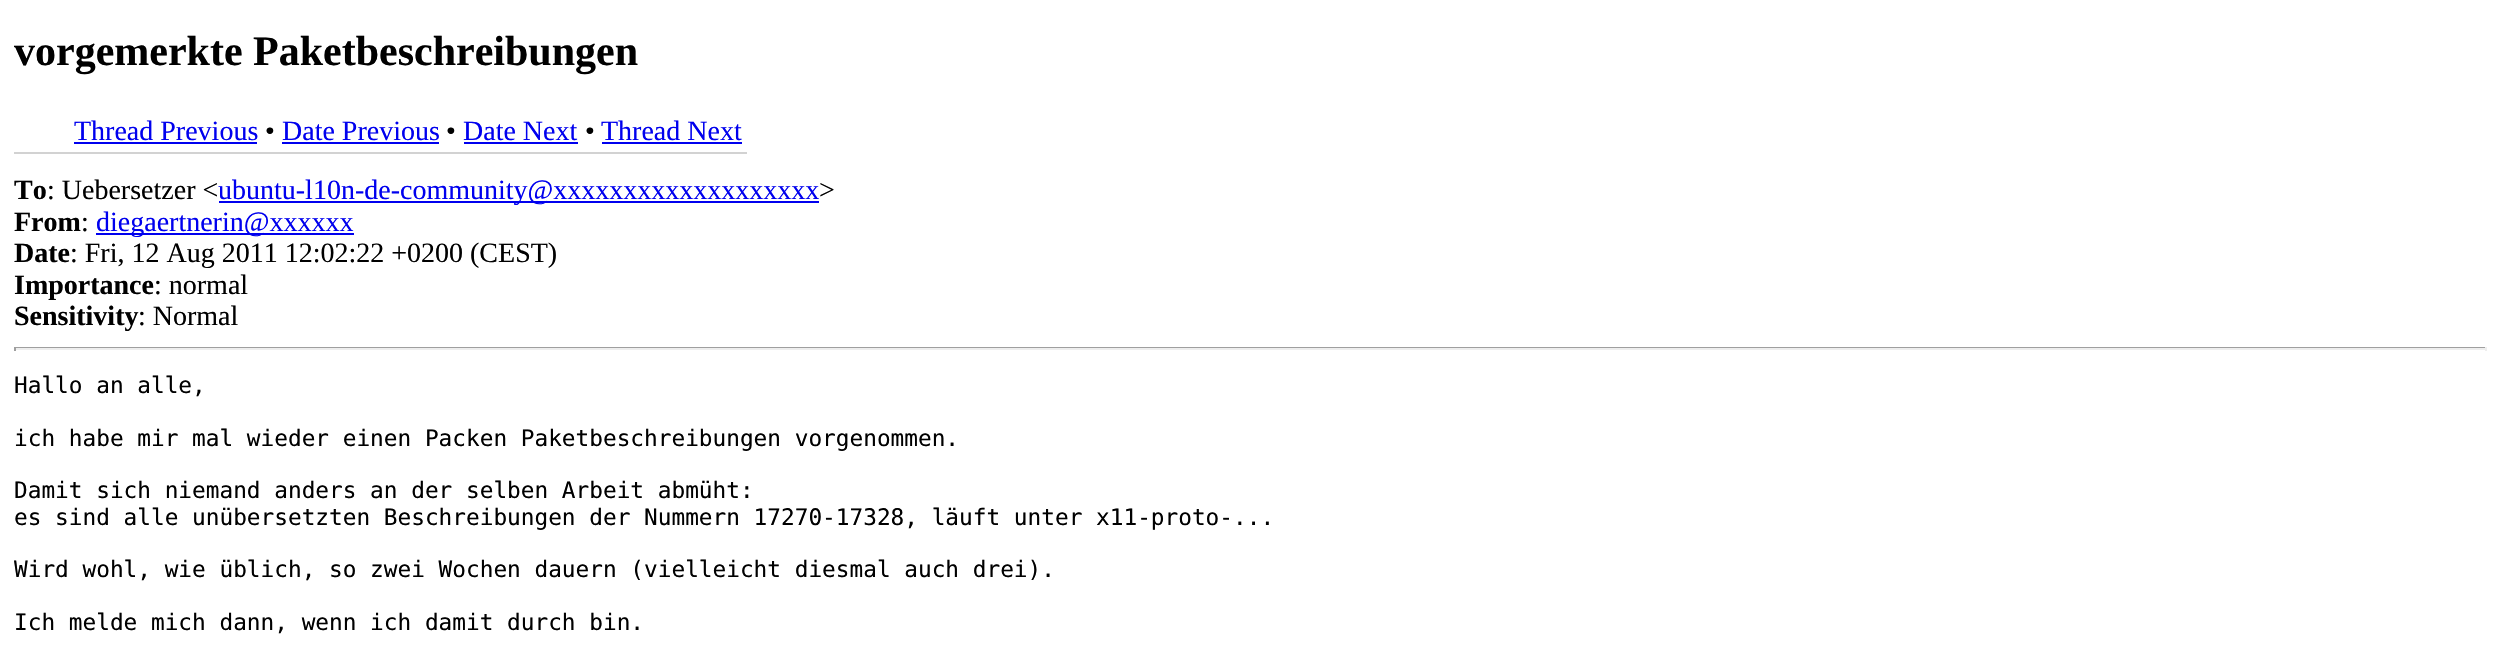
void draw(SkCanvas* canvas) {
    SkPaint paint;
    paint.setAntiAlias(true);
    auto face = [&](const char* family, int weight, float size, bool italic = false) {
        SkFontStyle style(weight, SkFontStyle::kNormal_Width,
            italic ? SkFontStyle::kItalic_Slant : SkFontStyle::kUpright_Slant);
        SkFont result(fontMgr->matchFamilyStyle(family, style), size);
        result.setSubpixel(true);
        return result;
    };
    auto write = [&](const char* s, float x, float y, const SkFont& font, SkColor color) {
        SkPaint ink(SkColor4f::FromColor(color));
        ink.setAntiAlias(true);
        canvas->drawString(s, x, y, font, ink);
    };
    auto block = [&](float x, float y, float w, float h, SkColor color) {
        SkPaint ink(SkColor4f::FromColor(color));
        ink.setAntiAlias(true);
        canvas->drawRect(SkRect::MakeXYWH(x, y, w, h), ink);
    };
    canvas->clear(SK_ColorWHITE);
    auto kFont1 = face("Liberation Serif", 700, 42);
    write("vorgemerkte Paketbeschreibungen", 14, 65, kFont1, SK_ColorBLACK);
    block(14, 152, 733, 2, SkColorSetRGB(210, 210, 210));
    auto kFont2 = face("Liberation Serif", 400, 28);
    write("Thread Previous", 74, 140, kFont2, SkColorSetRGB(0, 0, 238));
    block(74, 142, 183, 2, SkColorSetRGB(0, 0, 238));
    write("•", 265, 140, kFont2, SK_ColorBLACK);
    write("Date Previous", 282, 140, kFont2, SkColorSetRGB(0, 0, 238));
    block(282, 142, 157, 2, SkColorSetRGB(0, 0, 238));
    write("•", 446, 140, kFont2, SK_ColorBLACK);
    write("Date Next", 463, 140, kFont2, SkColorSetRGB(0, 0, 238));
    block(464, 142, 114, 2, SkColorSetRGB(0, 0, 238));
    write("•", 585, 140, kFont2, SK_ColorBLACK);
    write("Thread Next", 601, 140, kFont2, SkColorSetRGB(0, 0, 238));
    block(602, 142, 140, 2, SkColorSetRGB(0, 0, 238));
    auto kFont3 = face("Liberation Serif", 700, 28);
    write("To", 14, 199, kFont3, SK_ColorBLACK);
    write(": Uebersetzer <", 47, 199, kFont2, SK_ColorBLACK);
    block(219, 201, 600, 2, SkColorSetRGB(0, 0, 238));
    write("ubuntu-l10n-de-community@xxxxxxxxxxxxxxxxxxx", 218, 199, kFont2, SkColorSetRGB(0, 0, 238));
    write(">", 819, 199, kFont2, SK_ColorBLACK);
    write("From", 14, 231, kFont3, SK_ColorBLACK);
    write(":", 81, 231, kFont2, SK_ColorBLACK);
    block(96, 233, 258, 2, SkColorSetRGB(0, 0, 238));
    write("diegaertnerin@xxxxxx", 96, 231, kFont2, SkColorSetRGB(0, 0, 238));
    write("Date", 14, 262, kFont3, SK_ColorBLACK);
    write(": Fri, 12 Aug 2011 12:02:22 +0200 (CEST)", 70, 262, kFont2, SK_ColorBLACK);
    write("Importance", 14, 294, kFont3, SK_ColorBLACK);
    write(": normal", 154, 294, kFont2, SK_ColorBLACK);
    write("Sensitivity", 14, 325, kFont3, SK_ColorBLACK);
    write(": Normal", 138, 325, kFont2, SK_ColorBLACK);
    block(14, 347, 2473, 1, SkColorSetRGB(159, 159, 159));
    block(2485, 347, 2, 4, SkColorSetRGB(238, 238, 238));
    block(14, 348, 2473, 2, SkColorSetRGB(238, 238, 238));
    block(14, 347, 2, 4, SkColorSetRGB(159, 159, 159));
    auto kFont4 = face("DejaVu Sans Mono", 400, 22.75f);
    write("Hallo an alle,", 14, 393, kFont4, SK_ColorBLACK);
    write("ich habe mir mal wieder einen Packen Paketbeschreibungen vorgenommen.", 14, 446, kFont4, SK_ColorBLACK);
    write("Damit sich niemand anders an der selben Arbeit abmüht:", 14, 498, kFont4, SK_ColorBLACK);
    write("es sind alle unübersetzten Beschreibungen der Nummern 17270-17328, läuft unter x11-proto-...", 14, 525, kFont4, SK_ColorBLACK);
    write("Wird wohl, wie üblich, so zwei Wochen dauern (vielleicht diesmal auch drei).", 14, 577, kFont4, SK_ColorBLACK);
    write("Ich melde mich dann, wenn ich damit durch bin.", 14, 630, kFont4, SK_ColorBLACK);
}
